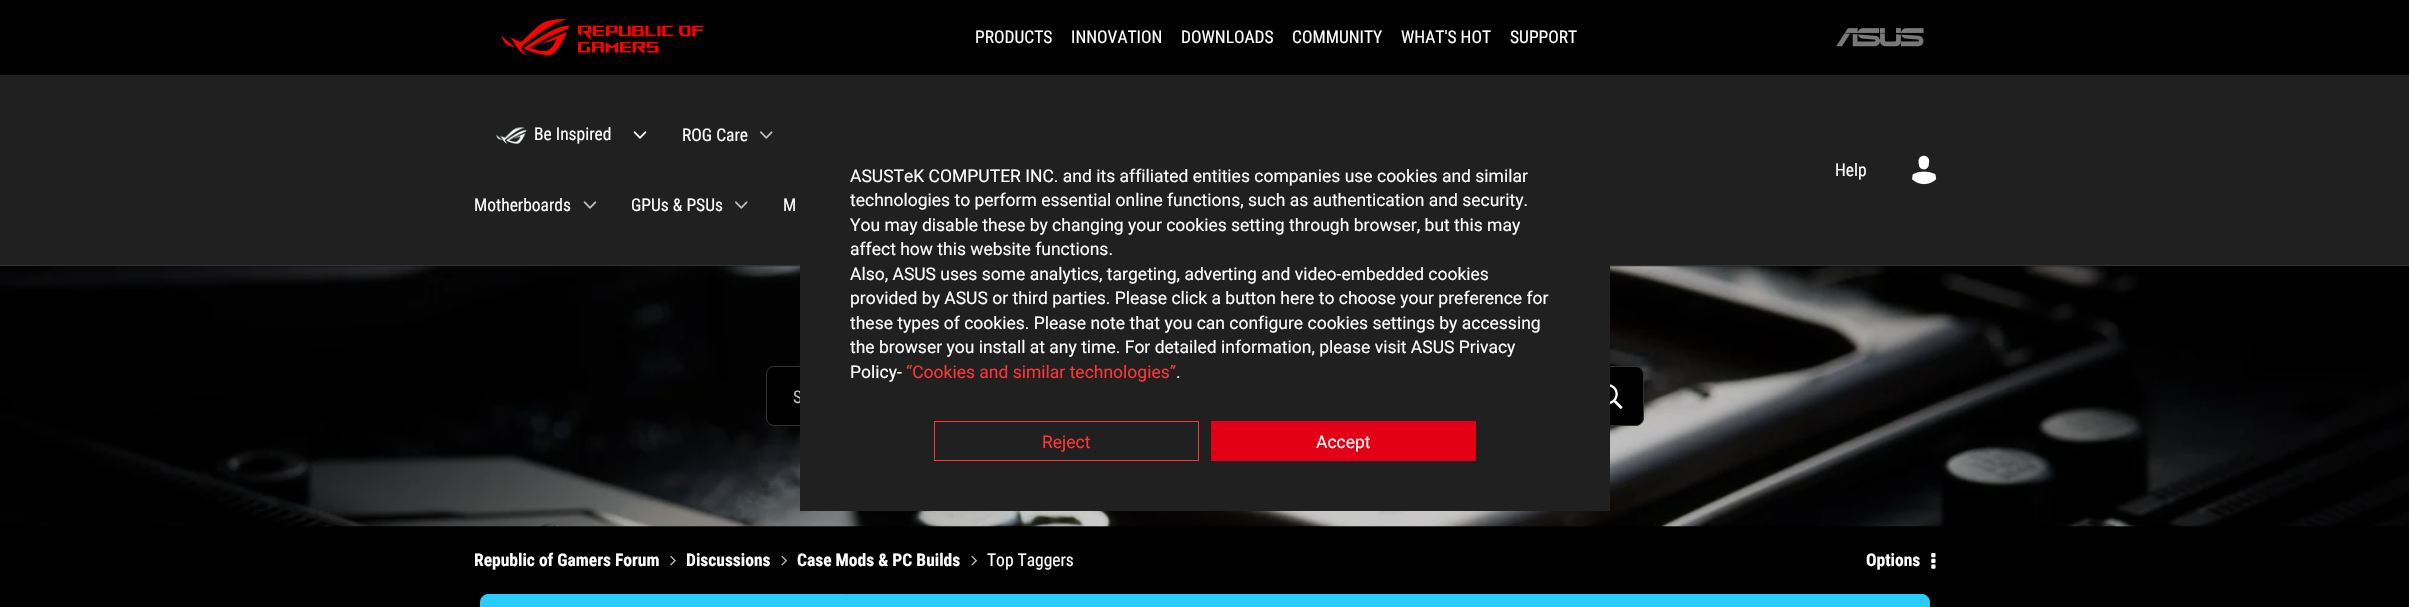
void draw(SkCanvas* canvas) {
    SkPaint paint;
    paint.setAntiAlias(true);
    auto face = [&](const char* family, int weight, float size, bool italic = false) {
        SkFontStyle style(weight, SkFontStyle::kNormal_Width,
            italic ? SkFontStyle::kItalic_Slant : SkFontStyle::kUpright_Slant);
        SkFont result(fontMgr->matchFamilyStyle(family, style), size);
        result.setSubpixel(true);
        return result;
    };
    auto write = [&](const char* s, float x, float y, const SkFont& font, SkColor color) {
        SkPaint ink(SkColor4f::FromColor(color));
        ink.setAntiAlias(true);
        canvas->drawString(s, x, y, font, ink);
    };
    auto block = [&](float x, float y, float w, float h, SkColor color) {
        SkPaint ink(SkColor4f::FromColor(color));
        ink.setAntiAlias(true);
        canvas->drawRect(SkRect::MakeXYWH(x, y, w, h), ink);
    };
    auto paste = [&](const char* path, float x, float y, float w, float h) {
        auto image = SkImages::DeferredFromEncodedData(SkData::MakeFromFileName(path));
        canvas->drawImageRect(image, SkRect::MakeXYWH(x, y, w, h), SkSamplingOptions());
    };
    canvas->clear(SK_ColorBLACK);
    paste("pic1.png", 501, 19, 203, 37);
    auto kFont1 = face("Roboto Condensed", 400, 17.5f);
    write("PRODUCTS", 975, 43, kFont1, SK_ColorWHITE);
    write("INNOVATION", 1071, 43, kFont1, SK_ColorWHITE);
    write("DOWNLOADS", 1181, 43, kFont1, SK_ColorWHITE);
    write("COMMUNITY", 1292, 43, kFont1, SK_ColorWHITE);
    write("WHAT'S HOT", 1401, 43, kFont1, SK_ColorWHITE);
    write("SUPPORT", 1510, 43, kFont1, SK_ColorWHITE);
    paste("pic2.png", 1836, 28, 88, 19);
    block(0, 75, 2409, 190, SkColorSetRGB(32, 32, 32));
    paste("pic3.png", 496, 127, 31, 17);
    write("Be Inspired", 534, 140, kFont1, SK_ColorWHITE);
    paste("pic4.png", 633, 131, 14, 8);
    write("ROG Care", 682, 141, kFont1, SK_ColorWHITE);
    paste("pic5.png", 760, 131, 13, 8);
    write("Motherboards", 474, 211, kFont1, SK_ColorWHITE);
    paste("pic6.png", 583, 201, 14, 8);
    write("GPUs & PSUs", 631, 211, kFont1, SK_ColorWHITE);
    paste("pic5.png", 735, 201, 13, 8);
    write("M", 783, 211, kFont1, SK_ColorWHITE);
    write("Help", 1835, 176, kFont1, SK_ColorWHITE);
    paste("pic7.png", 1912, 155, 25, 30);
    block(0, 265, 2409, 1, SkColorSetRGB(51, 51, 51));
    paste("pic8.png", 0, 266, 2409, 261);
    paint.setColor(SK_ColorBLACK);
    canvas->drawRoundRect(SkRect::MakeXYWH(766.5f, 366.5f, 877, 59), 7.5f, 7.5f, paint);
    paint.setStyle(SkPaint::kStroke_Style);
    paint.setStrokeWidth(1);
    paint.setColor(SkColorSetRGB(51, 51, 51));
    canvas->drawRoundRect(SkRect::MakeXYWH(766.5f, 366.5f, 877, 59), 7.5f, 7.5f, paint);
    write("S", 793, 403, kFont1, SkColorSetRGB(191, 191, 191));
    paste("pic9.png", 1610, 384, 13, 25);
    auto kFont2 = face("Roboto Condensed", 700, 17.5f);
    write("Republic of Gamers Forum", 474, 566, kFont2, SK_ColorWHITE);
    paste("pic10.png", 670, 555, 6, 11);
    write("Discussions", 686, 566, kFont2, SK_ColorWHITE);
    paste("pic11.png", 781, 555, 6, 11);
    write("Case Mods & PC Builds", 797, 566, kFont2, SK_ColorWHITE);
    paste("pic11.png", 971, 555, 6, 11);
    write("Top Taggers", 987, 566, kFont1, SK_ColorWHITE);
    write("Options", 1866, 566, kFont2, SK_ColorWHITE);
    paste("pic12.png", 1931, 553, 5, 16);
    paint.setStyle(SkPaint::kFill_Style);
    paint.setColor(SkColorSetRGB(41, 204, 252));
    canvas->drawRoundRect(SkRect::MakeXYWH(480.5f, 594.5f, 1449, 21), 7.5f, 7.5f, paint);
    paint.setStyle(SkPaint::kStroke_Style);
    canvas->drawRoundRect(SkRect::MakeXYWH(480.5f, 594.5f, 1449, 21), 7.5f, 7.5f, paint);
    block(800, 265, 810, 246, SkColorSetRGB(32, 32, 32));
    auto kFont3 = face("Roboto", 400, 17.5f);
    write("ASUSTeK COMPUTER INC. and its affiliated entities companies use cookies and similar", 850, 182, kFont3, SK_ColorWHITE);
    write("technologies to perform essential online functions, such as authentication and security.", 850, 206, kFont3, SK_ColorWHITE);
    write("You may disable these by changing your cookies setting through browser, but this may", 850, 231, kFont3, SK_ColorWHITE);
    write("affect how this website functions.", 850, 255, kFont3, SK_ColorWHITE);
    write("Also, ASUS uses some analytics, targeting, adverting and video-embedded cookies", 850, 280, kFont3, SK_ColorWHITE);
    write("provided by ASUS or third parties. Please click a button here to choose your preference for", 850, 304, kFont3, SK_ColorWHITE);
    write("these types of cookies. Please note that you can configure cookies settings by accessing", 850, 329, kFont3, SK_ColorWHITE);
    write("the browser you install at any time. For detailed information, please visit ASUS Privacy", 850, 353, kFont3, SK_ColorWHITE);
    write("Policy-", 850, 378, kFont3, SK_ColorWHITE);
    write("“Cookies and similar technologies”", 906, 378, kFont3, SkColorSetRGB(255, 53, 53));
    write(".", 1176, 378, kFont3, SK_ColorWHITE);
    paint.setColor(SkColorSetRGB(255, 53, 53));
    canvas->drawRect(SkRect::MakeXYWH(934.5f, 421.5f, 264, 39), paint);
    write("Reject", 1042, 448, kFont3, SkColorSetRGB(255, 53, 53));
    block(1211, 421, 265, 40, SkColorSetRGB(227, 0, 23));
    write("Accept", 1316, 448, kFont3, SK_ColorWHITE);
}
